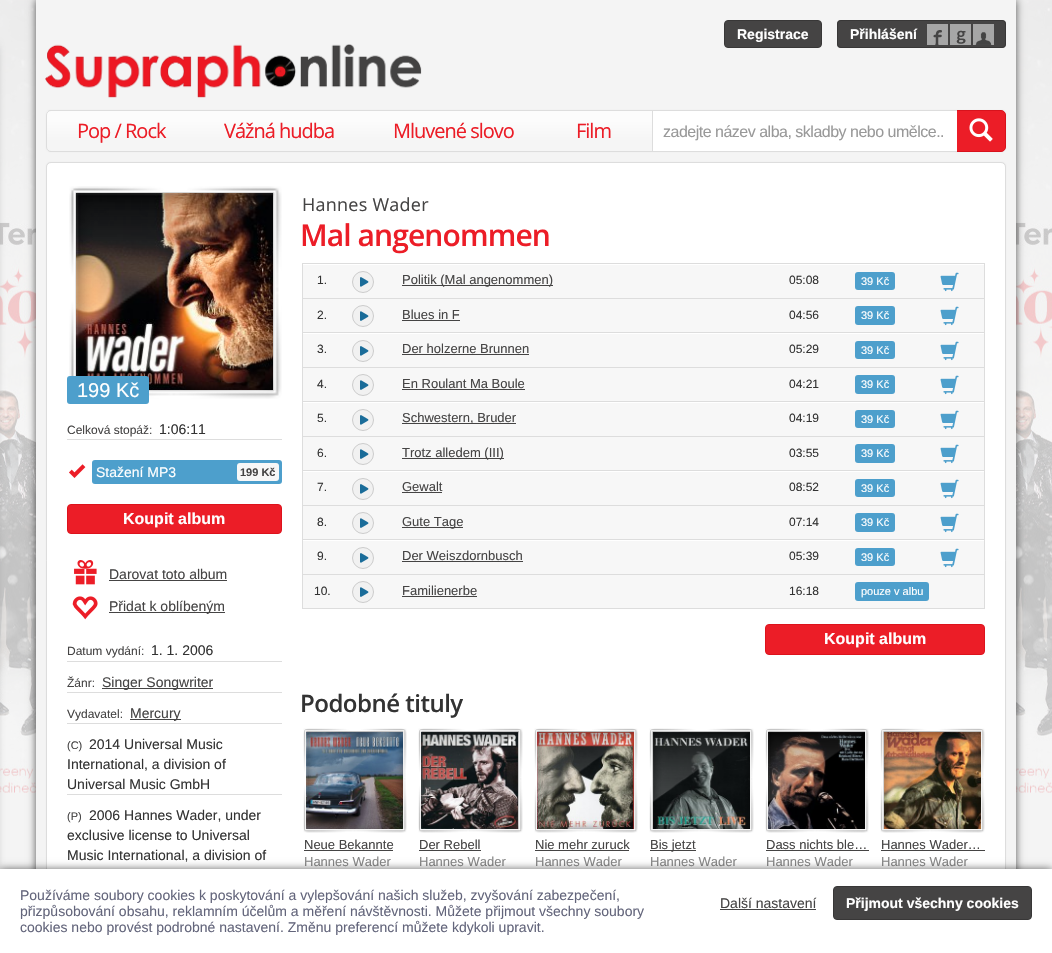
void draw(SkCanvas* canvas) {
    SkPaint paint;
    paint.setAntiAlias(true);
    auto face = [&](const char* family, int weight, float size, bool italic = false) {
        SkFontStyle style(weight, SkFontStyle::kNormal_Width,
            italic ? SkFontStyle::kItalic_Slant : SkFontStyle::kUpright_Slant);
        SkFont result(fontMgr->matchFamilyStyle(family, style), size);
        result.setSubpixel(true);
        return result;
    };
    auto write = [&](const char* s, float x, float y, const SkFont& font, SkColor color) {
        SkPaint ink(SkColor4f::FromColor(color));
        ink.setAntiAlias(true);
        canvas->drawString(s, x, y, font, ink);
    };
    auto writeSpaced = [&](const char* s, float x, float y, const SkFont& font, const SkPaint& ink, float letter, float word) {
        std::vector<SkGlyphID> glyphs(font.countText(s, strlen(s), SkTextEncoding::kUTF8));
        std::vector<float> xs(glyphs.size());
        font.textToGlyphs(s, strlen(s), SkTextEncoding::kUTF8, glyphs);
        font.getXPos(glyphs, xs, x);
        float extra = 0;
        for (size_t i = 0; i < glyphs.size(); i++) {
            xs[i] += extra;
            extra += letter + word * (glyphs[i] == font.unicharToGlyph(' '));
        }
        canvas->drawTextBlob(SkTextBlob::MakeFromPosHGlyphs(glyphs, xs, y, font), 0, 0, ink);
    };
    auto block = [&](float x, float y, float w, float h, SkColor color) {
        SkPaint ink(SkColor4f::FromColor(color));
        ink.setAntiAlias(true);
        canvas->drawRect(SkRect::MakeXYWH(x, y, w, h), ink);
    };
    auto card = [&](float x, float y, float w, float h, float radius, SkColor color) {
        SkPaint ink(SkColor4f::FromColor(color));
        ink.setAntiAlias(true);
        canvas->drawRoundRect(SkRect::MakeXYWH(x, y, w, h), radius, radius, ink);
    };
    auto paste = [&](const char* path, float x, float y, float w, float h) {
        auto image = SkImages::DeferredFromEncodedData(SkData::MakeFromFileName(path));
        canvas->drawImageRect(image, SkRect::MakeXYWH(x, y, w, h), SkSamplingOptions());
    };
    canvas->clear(SkColorSetRGB(244, 244, 244));
    paste("pic1.png", 0, 0, 36, 793);
    paste("pic1.png", 1016, 0, 36, 793);
    canvas->save();
    canvas->clipPath(SkPathBuilder(SkPathFillType::kEvenOdd).moveTo(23, 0).lineTo(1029, 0).lineTo(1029, 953).lineTo(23, 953).close().moveTo(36, 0).lineTo(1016, 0).lineTo(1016, 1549).lineTo(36, 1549).close().detach(), true);
    paint.setColor(SkColorSetARGB(166, 0, 0, 0));
    paint.setMaskFilter(SkMaskFilter::MakeBlur(kNormal_SkBlurStyle, 4));
    canvas->drawRect(SkRect::MakeXYWH(36, 0, 980, 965), paint);
    paint.setMaskFilter(nullptr);
    canvas->restore();
    paint.setColor(SkColorSetRGB(139, 139, 139));
    paint.setMaskFilter(SkMaskFilter::MakeBlur(kNormal_SkBlurStyle, 5));
    canvas->drawRect(SkRect::MakeXYWH(-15, 46, 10, 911), paint);
    paint.setMaskFilter(nullptr);
    paint.setColor(SkColorSetRGB(69, 68, 68));
    canvas->drawRoundRect(SkRect::MakeXYWH(724.5f, 20.5f, 97, 27), 3.5f, 3.5f, paint);
    paint.setStyle(SkPaint::kStroke_Style);
    paint.setStrokeWidth(1);
    paint.setColor(SkColorSetRGB(56, 55, 55));
    canvas->drawRoundRect(SkRect::MakeXYWH(724.5f, 20.5f, 97, 27), 3.5f, 3.5f, paint);
    auto kFont1 = face("Liberation Sans", 700, 14);
    write("Registrace", 737, 39, kFont1, SK_ColorWHITE);
    card(837, 20, 169, 28, 4, SkColorSetRGB(69, 68, 68));
    paste("pic2.png", 927, 24, 67, 21);
    canvas->drawRoundRect(SkRect::MakeXYWH(837.5f, 20.5f, 168, 27), 3.5f, 3.5f, paint);
    write("Přihlášení", 850, 39, kFont1, SK_ColorWHITE);
    paste("pic3.png", 45, 44, 377, 54);
    paint.setStyle(SkPaint::kFill_Style);
    paint.setColor(SkColorSetRGB(225, 225, 225));
    paint.setMaskFilter(SkMaskFilter::MakeBlur(kNormal_SkBlurStyle, 0.5f));
    canvas->drawRoundRect(SkRect::MakeXYWH(46, 110, 960, 42), 5, 5, paint);
    paint.setMaskFilter(nullptr);
    canvas->save();
    canvas->clipPath(SkPathBuilder().moveTo(51, 110).lineTo(1001, 110).cubicTo(1004, 110, 1006, 112, 1006, 115).lineTo(1006, 147).cubicTo(1006, 150, 1004, 152, 1001, 152).lineTo(51, 152).cubicTo(48, 152, 46, 150, 46, 147).lineTo(46, 115).cubicTo(46, 112, 48, 110, 51, 110).close().detach(), true);
    {
        const SkColor colors[] = {SkColorSetRGB(252, 252, 252), SkColorSetRGB(245, 245, 245)};
        const float stops[] = {0.25f, 0.75f};
        const SkPoint ends[] = {{526, 111}, {526, 151}};
        paint.setShader(SkGradientShader::MakeLinear(ends, colors, stops, 2, SkTileMode::kClamp));
        paint.setAlpha(255);
    }
    canvas->drawRect(SkRect::MakeXYWH(46, 111, 960, 40), paint);
    canvas->restore();
    paint.setStyle(SkPaint::kStroke_Style);
    paint.setShader(nullptr);
    paint.setColor(SkColorSetRGB(221, 221, 221));
    canvas->drawRoundRect(SkRect::MakeXYWH(46.5f, 110.5f, 959, 41), 4.5f, 4.5f, paint);
    auto kFont2 = face("Open Sans", 400, 20);
    paint.setStyle(SkPaint::kFill_Style);
    paint.setColor(SkColorSetRGB(236, 29, 39));
    writeSpaced("Pop / Rock", 77, 138, kFont2, paint, -1, 0);
    writeSpaced("Vážná hudba", 224, 138, kFont2, paint, -1, 0);
    writeSpaced("Mluvené slovo", 393, 138, kFont2, paint, -1, 0);
    writeSpaced("Film", 576, 138, kFont2, paint, -1, 0);
    canvas->drawPath(SkPathBuilder().moveTo(956.5f, 110.5f).lineTo(1001, 110.5f).cubicTo(1003.5f, 110.5f, 1005.5f, 112.5f, 1005.5f, 115).lineTo(1005.5f, 147).cubicTo(1005.5f, 149.5f, 1003.5f, 151.5f, 1001, 151.5f).lineTo(956.5f, 151.5f).close().detach(), paint);
    paint.setStyle(SkPaint::kStroke_Style);
    paint.setColor(SkColorSetRGB(216, 18, 28));
    canvas->drawPath(SkPathBuilder().moveTo(956.5f, 110.5f).lineTo(1001, 110.5f).cubicTo(1003.5f, 110.5f, 1005.5f, 112.5f, 1005.5f, 115).lineTo(1005.5f, 147).cubicTo(1005.5f, 149.5f, 1003.5f, 151.5f, 1001, 151.5f).lineTo(956.5f, 151.5f).close().detach(), paint);
    block(653, 111, 304, 40, SK_ColorWHITE);
    block(956, 110, 1, 1, SkColorSetRGB(221, 221, 221));
    block(956, 151, 1, 1, SkColorSetRGB(221, 221, 221));
    block(652, 110, 1, 42, SkColorSetRGB(221, 221, 221));
    auto kFont3 = face("Liberation Sans", 400, 16);
    paint.setStyle(SkPaint::kFill_Style);
    paint.setColor(SkColorSetRGB(153, 153, 153));
    writeSpaced("zadejte název alba, skladby nebo umělce..", 663, 137, kFont3, paint, -0.5f, 0);
    paste("pic4.png", 969, 118, 24, 24);
    paint.setColor(SkColorSetRGB(225, 225, 225));
    paint.setMaskFilter(SkMaskFilter::MakeBlur(kNormal_SkBlurStyle, 0.5f));
    canvas->drawRoundRect(SkRect::MakeXYWH(46, 162, 960, 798), 5, 5, paint);
    paint.setMaskFilter(nullptr);
    paint.setColor(SK_ColorWHITE);
    canvas->drawPath(SkPathBuilder().moveTo(51, 162.5f).lineTo(1001, 162.5f).cubicTo(1003.5f, 162.5f, 1005.5f, 164.5f, 1005.5f, 167).lineTo(1005.5f, 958.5f).lineTo(46.5f, 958.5f).lineTo(46.5f, 167).cubicTo(46.5f, 164.5f, 48.5f, 162.5f, 51, 162.5f).close().detach(), paint);
    paint.setStyle(SkPaint::kStroke_Style);
    paint.setColor(SkColorSetRGB(221, 221, 221));
    canvas->drawPath(SkPathBuilder().moveTo(51, 162.5f).lineTo(1001, 162.5f).cubicTo(1003.5f, 162.5f, 1005.5f, 164.5f, 1005.5f, 167).lineTo(1005.5f, 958.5f).lineTo(46.5f, 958.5f).lineTo(46.5f, 167).cubicTo(46.5f, 164.5f, 48.5f, 162.5f, 51, 162.5f).close().detach(), paint);
    paste("pic6.png", 76, 193, 197, 197);
    paste("pic5.png", 69, 186, 213, 213);
    card(67, 376, 82, 28, 3, SkColorSetRGB(77, 159, 204));
    auto kFont4 = face("Liberation Sans", 400, 20);
    write("199 Kč", 77, 397, kFont4, SK_ColorWHITE);
    block(67, 439, 215, 1, SkColorSetRGB(221, 221, 221));
    auto kFont5 = face("Liberation Sans", 400, 12);
    write("Celková stopáž:", 67, 434, kFont5, SkColorSetRGB(69, 68, 68));
    auto kFont6 = face("Liberation Sans", 400, 14);
    write("1:06:11", 159, 434, kFont6, SkColorSetRGB(51, 51, 51));
    paste("pic7.png", 69, 464, 17, 14);
    card(92, 460, 190, 24, 3, SkColorSetRGB(77, 159, 204));
    write("Stažení MP3", 96, 477, kFont6, SK_ColorWHITE);
    card(237, 463, 42, 18, 3, SkColorSetRGB(247, 247, 247));
    auto kFont7 = face("Liberation Sans", 700, 11);
    write("199 Kč", 240, 476, kFont7, SkColorSetRGB(69, 68, 68));
    paint.setStyle(SkPaint::kFill_Style);
    paint.setColor(SkColorSetRGB(236, 29, 39));
    canvas->drawRoundRect(SkRect::MakeXYWH(67.5f, 504.5f, 214, 29), 3.5f, 3.5f, paint);
    paint.setStyle(SkPaint::kStroke_Style);
    paint.setColor(SkColorSetRGB(221, 19, 28));
    canvas->drawRoundRect(SkRect::MakeXYWH(67.5f, 504.5f, 214, 29), 3.5f, 3.5f, paint);
    auto kFont8 = face("Liberation Sans", 700, 16);
    write("Koupit album", 123, 524, kFont8, SK_ColorWHITE);
    paste("pic8.png", 74, 560, 23, 25);
    write("Darovat toto album", 109, 579, kFont6, SkColorSetRGB(69, 68, 68));
    block(109, 580, 118, 1, SkColorSetRGB(69, 68, 68));
    paste("pic9.png", 72, 596, 26, 24);
    block(109, 612, 116, 1, SkColorSetRGB(69, 68, 68));
    write("Přidat k oblíbeným", 109, 611, kFont6, SkColorSetRGB(69, 68, 68));
    block(67, 661, 215, 1, SkColorSetRGB(221, 221, 221));
    write("Datum vydání:", 67, 655, kFont5, SkColorSetRGB(69, 68, 68));
    write("1. 1. 2006", 151, 655, kFont6, SkColorSetRGB(51, 51, 51));
    block(67, 692, 215, 1, SkColorSetRGB(221, 221, 221));
    write("Žánr:", 67, 687, kFont5, SkColorSetRGB(69, 68, 68));
    block(102, 688, 111, 1, SkColorSetRGB(69, 68, 68));
    write("Singer Songwriter", 102, 687, kFont6, SkColorSetRGB(69, 68, 68));
    block(67, 723, 215, 1, SkColorSetRGB(221, 221, 221));
    write("Vydavatel:", 67, 718, kFont5, SkColorSetRGB(69, 68, 68));
    block(130, 719, 51, 1, SkColorSetRGB(69, 68, 68));
    write("Mercury", 130, 718, kFont6, SkColorSetRGB(69, 68, 68));
    block(67, 794, 215, 1, SkColorSetRGB(221, 221, 221));
    auto kFont9 = face("Liberation Sans", 400, 11);
    write("(C)", 67, 749, kFont9, SkColorSetRGB(69, 68, 68));
    write("2014 Universal Music", 89, 749, kFont6, SkColorSetRGB(51, 51, 51));
    write("International, a division of", 67, 769, kFont6, SkColorSetRGB(51, 51, 51));
    write("Universal Music GmbH", 67, 789, kFont6, SkColorSetRGB(51, 51, 51));
    write("(P)", 67, 820, kFont9, SkColorSetRGB(69, 68, 68));
    write("2006 Hannes Wader, under", 89, 820, kFont6, SkColorSetRGB(51, 51, 51));
    write("exclusive license to Universal", 67, 840, kFont6, SkColorSetRGB(51, 51, 51));
    write("Music International, a division of", 67, 860, kFont6, SkColorSetRGB(51, 51, 51));
    auto kFont10 = face("Open Sans", 400, 18);
    paint.setStyle(SkPaint::kFill_Style);
    paint.setColor(SkColorSetRGB(69, 68, 68));
    writeSpaced("Hannes Wader", 302, 211, kFont10, paint, 0.25f, 0);
    auto kFont11 = face("Open Sans", 600, 30);
    paint.setColor(SkColorSetRGB(236, 29, 39));
    writeSpaced("Mal angenommen", 300, 246, kFont11, paint, -0.9f, 0);
    block(302, 608, 683, 1, SkColorSetRGB(221, 221, 221));
    block(303, 265, 681, 33, SkColorSetRGB(247, 247, 247));
    block(302, 263, 683, 1, SkColorSetRGB(221, 221, 221));
    block(302, 298, 683, 1, SkColorSetRGB(221, 221, 221));
    block(302, 332, 683, 1, SkColorSetRGB(221, 221, 221));
    block(302, 367, 683, 1, SkColorSetRGB(221, 221, 221));
    block(302, 401, 683, 1, SkColorSetRGB(221, 221, 221));
    block(302, 436, 683, 1, SkColorSetRGB(221, 221, 221));
    block(302, 470, 683, 1, SkColorSetRGB(221, 221, 221));
    block(302, 505, 683, 1, SkColorSetRGB(221, 221, 221));
    block(302, 539, 683, 1, SkColorSetRGB(221, 221, 221));
    block(302, 574, 683, 1, SkColorSetRGB(221, 221, 221));
    block(984, 573, 1, 36, SkColorSetRGB(221, 221, 221));
    block(984, 539, 1, 35, SkColorSetRGB(221, 221, 221));
    block(984, 504, 1, 36, SkColorSetRGB(221, 221, 221));
    block(984, 470, 1, 35, SkColorSetRGB(221, 221, 221));
    block(984, 435, 1, 36, SkColorSetRGB(221, 221, 221));
    block(984, 401, 1, 35, SkColorSetRGB(221, 221, 221));
    block(984, 366, 1, 36, SkColorSetRGB(221, 221, 221));
    block(984, 332, 1, 35, SkColorSetRGB(221, 221, 221));
    block(984, 297, 1, 36, SkColorSetRGB(221, 221, 221));
    block(984, 263, 1, 35, SkColorSetRGB(221, 221, 221));
    block(302, 573, 1, 36, SkColorSetRGB(221, 221, 221));
    block(302, 539, 1, 35, SkColorSetRGB(221, 221, 221));
    block(302, 504, 1, 36, SkColorSetRGB(221, 221, 221));
    block(302, 470, 1, 35, SkColorSetRGB(221, 221, 221));
    block(302, 435, 1, 36, SkColorSetRGB(221, 221, 221));
    block(302, 401, 1, 35, SkColorSetRGB(221, 221, 221));
    block(302, 366, 1, 36, SkColorSetRGB(221, 221, 221));
    block(302, 332, 1, 35, SkColorSetRGB(221, 221, 221));
    block(302, 297, 1, 36, SkColorSetRGB(221, 221, 221));
    block(302, 263, 1, 35, SkColorSetRGB(221, 221, 221));
    write("1.", 317, 284, kFont5, SkColorSetRGB(51, 51, 51));
    paint.setColor(SkColorSetRGB(241, 241, 241));
    canvas->drawCircle(363, 282, 10.5f, paint);
    paint.setStyle(SkPaint::kStroke_Style);
    paint.setColor(SkColorSetRGB(204, 204, 204));
    canvas->drawCircle(363, 282, 10.5f, paint);
    paste("pic10.png", 360, 277, 9, 10);
    block(402, 285, 151, 1, SkColorSetRGB(69, 68, 68));
    auto kFont12 = face("Liberation Sans", 400, 13);
    write("Politik (Mal angenommen)", 402, 284, kFont12, SkColorSetRGB(69, 68, 68));
    write("05:08", 789, 284, kFont5, SkColorSetRGB(51, 51, 51));
    card(855, 272, 40, 18, 3, SkColorSetRGB(77, 159, 204));
    write("39 Kč", 861, 285, kFont9, SK_ColorWHITE);
    paste("pic11.png", 940, 272, 19, 20);
    block(303, 299, 681, 33, SkColorSetRGB(247, 247, 247));
    write("2.", 317, 319, kFont5, SkColorSetRGB(51, 51, 51));
    paint.setStyle(SkPaint::kFill_Style);
    paint.setColor(SkColorSetRGB(241, 241, 241));
    canvas->drawCircle(363, 316, 10.5f, paint);
    paint.setStyle(SkPaint::kStroke_Style);
    paint.setColor(SkColorSetRGB(204, 204, 204));
    canvas->drawCircle(363, 316, 10.5f, paint);
    paste("pic12.png", 360, 311, 9, 10);
    write("Blues in F", 402, 319, kFont12, SkColorSetRGB(69, 68, 68));
    block(402, 320, 58, 1, SkColorSetRGB(69, 68, 68));
    write("04:56", 789, 319, kFont5, SkColorSetRGB(51, 51, 51));
    card(855, 306, 40, 19, 3, SkColorSetRGB(77, 159, 204));
    write("39 Kč", 861, 319, kFont9, SK_ColorWHITE);
    paste("pic11.png", 940, 306, 19, 20);
    block(303, 334, 681, 33, SkColorSetRGB(247, 247, 247));
    write("3.", 317, 353, kFont5, SkColorSetRGB(51, 51, 51));
    paint.setStyle(SkPaint::kFill_Style);
    paint.setColor(SkColorSetRGB(241, 241, 241));
    canvas->drawCircle(363, 351, 10.5f, paint);
    paint.setStyle(SkPaint::kStroke_Style);
    paint.setColor(SkColorSetRGB(204, 204, 204));
    canvas->drawCircle(363, 351, 10.5f, paint);
    paste("pic10.png", 360, 346, 9, 10);
    write("Der holzerne Brunnen", 402, 353, kFont12, SkColorSetRGB(69, 68, 68));
    block(402, 354, 127, 1, SkColorSetRGB(69, 68, 68));
    write("05:29", 789, 353, kFont5, SkColorSetRGB(51, 51, 51));
    card(855, 341, 40, 18, 3, SkColorSetRGB(77, 159, 204));
    write("39 Kč", 861, 354, kFont9, SK_ColorWHITE);
    paste("pic11.png", 940, 341, 19, 20);
    block(303, 368, 681, 33, SkColorSetRGB(247, 247, 247));
    write("4.", 317, 388, kFont5, SkColorSetRGB(51, 51, 51));
    paint.setStyle(SkPaint::kFill_Style);
    paint.setColor(SkColorSetRGB(241, 241, 241));
    canvas->drawCircle(363, 385, 10.5f, paint);
    paint.setStyle(SkPaint::kStroke_Style);
    paint.setColor(SkColorSetRGB(204, 204, 204));
    canvas->drawCircle(363, 385, 10.5f, paint);
    paste("pic12.png", 360, 380, 9, 10);
    write("En Roulant Ma Boule", 402, 388, kFont12, SkColorSetRGB(69, 68, 68));
    block(402, 389, 123, 1, SkColorSetRGB(69, 68, 68));
    write("04:21", 789, 388, kFont5, SkColorSetRGB(51, 51, 51));
    card(855, 375, 40, 19, 3, SkColorSetRGB(77, 159, 204));
    write("39 Kč", 861, 388, kFont9, SK_ColorWHITE);
    paste("pic11.png", 940, 375, 19, 20);
    block(303, 403, 681, 33, SkColorSetRGB(247, 247, 247));
    write("5.", 317, 422, kFont5, SkColorSetRGB(51, 51, 51));
    paint.setStyle(SkPaint::kFill_Style);
    paint.setColor(SkColorSetRGB(241, 241, 241));
    canvas->drawCircle(363, 420, 10.5f, paint);
    paint.setStyle(SkPaint::kStroke_Style);
    paint.setColor(SkColorSetRGB(204, 204, 204));
    canvas->drawCircle(363, 420, 10.5f, paint);
    paste("pic10.png", 360, 415, 9, 10);
    block(402, 423, 114, 1, SkColorSetRGB(69, 68, 68));
    write("Schwestern, Bruder", 402, 422, kFont12, SkColorSetRGB(69, 68, 68));
    write("04:19", 789, 422, kFont5, SkColorSetRGB(51, 51, 51));
    card(855, 410, 40, 18, 3, SkColorSetRGB(77, 159, 204));
    write("39 Kč", 861, 423, kFont9, SK_ColorWHITE);
    paste("pic11.png", 940, 410, 19, 20);
    block(303, 437, 681, 33, SkColorSetRGB(247, 247, 247));
    write("6.", 317, 457, kFont5, SkColorSetRGB(51, 51, 51));
    paint.setStyle(SkPaint::kFill_Style);
    paint.setColor(SkColorSetRGB(241, 241, 241));
    canvas->drawCircle(363, 454, 10.5f, paint);
    paint.setStyle(SkPaint::kStroke_Style);
    paint.setColor(SkColorSetRGB(204, 204, 204));
    canvas->drawCircle(363, 454, 10.5f, paint);
    paste("pic12.png", 360, 449, 9, 10);
    block(402, 458, 102, 1, SkColorSetRGB(69, 68, 68));
    write("Trotz alledem (III)", 402, 457, kFont12, SkColorSetRGB(69, 68, 68));
    write("03:55", 789, 457, kFont5, SkColorSetRGB(51, 51, 51));
    card(855, 444, 40, 19, 3, SkColorSetRGB(77, 159, 204));
    write("39 Kč", 861, 457, kFont9, SK_ColorWHITE);
    paste("pic11.png", 940, 444, 19, 20);
    block(303, 472, 681, 33, SkColorSetRGB(247, 247, 247));
    write("7.", 317, 491, kFont5, SkColorSetRGB(51, 51, 51));
    paint.setStyle(SkPaint::kFill_Style);
    paint.setColor(SkColorSetRGB(241, 241, 241));
    canvas->drawCircle(363, 489, 10.5f, paint);
    paint.setStyle(SkPaint::kStroke_Style);
    paint.setColor(SkColorSetRGB(204, 204, 204));
    canvas->drawCircle(363, 489, 10.5f, paint);
    paste("pic10.png", 360, 484, 9, 10);
    write("Gewalt", 402, 491, kFont12, SkColorSetRGB(69, 68, 68));
    block(402, 492, 40, 1, SkColorSetRGB(69, 68, 68));
    write("08:52", 789, 491, kFont5, SkColorSetRGB(51, 51, 51));
    card(855, 479, 40, 18, 3, SkColorSetRGB(77, 159, 204));
    write("39 Kč", 861, 492, kFont9, SK_ColorWHITE);
    paste("pic11.png", 940, 479, 19, 20);
    block(303, 506, 681, 33, SkColorSetRGB(247, 247, 247));
    write("8.", 317, 526, kFont5, SkColorSetRGB(51, 51, 51));
    paint.setStyle(SkPaint::kFill_Style);
    paint.setColor(SkColorSetRGB(241, 241, 241));
    canvas->drawCircle(363, 523, 10.5f, paint);
    paint.setStyle(SkPaint::kStroke_Style);
    paint.setColor(SkColorSetRGB(204, 204, 204));
    canvas->drawCircle(363, 523, 10.5f, paint);
    paste("pic12.png", 360, 518, 9, 10);
    block(402, 527, 61, 1, SkColorSetRGB(69, 68, 68));
    write("Gute Tage", 402, 526, kFont12, SkColorSetRGB(69, 68, 68));
    write("07:14", 789, 526, kFont5, SkColorSetRGB(51, 51, 51));
    card(855, 513, 40, 19, 3, SkColorSetRGB(77, 159, 204));
    write("39 Kč", 861, 526, kFont9, SK_ColorWHITE);
    paste("pic11.png", 940, 513, 19, 20);
    block(303, 541, 681, 33, SkColorSetRGB(247, 247, 247));
    write("9.", 317, 560, kFont5, SkColorSetRGB(51, 51, 51));
    paint.setStyle(SkPaint::kFill_Style);
    paint.setColor(SkColorSetRGB(241, 241, 241));
    canvas->drawCircle(363, 558, 10.5f, paint);
    paint.setStyle(SkPaint::kStroke_Style);
    paint.setColor(SkColorSetRGB(204, 204, 204));
    canvas->drawCircle(363, 558, 10.5f, paint);
    paste("pic10.png", 360, 553, 9, 10);
    write("Der Weiszdornbusch", 402, 560, kFont12, SkColorSetRGB(69, 68, 68));
    block(402, 561, 121, 1, SkColorSetRGB(69, 68, 68));
    write("05:39", 789, 560, kFont5, SkColorSetRGB(51, 51, 51));
    card(855, 548, 40, 18, 3, SkColorSetRGB(77, 159, 204));
    write("39 Kč", 861, 561, kFont9, SK_ColorWHITE);
    paste("pic11.png", 940, 548, 19, 20);
    block(303, 575, 681, 33, SkColorSetRGB(247, 247, 247));
    write("10.", 314, 595, kFont5, SkColorSetRGB(51, 51, 51));
    paint.setStyle(SkPaint::kFill_Style);
    paint.setColor(SkColorSetRGB(241, 241, 241));
    canvas->drawCircle(363, 592, 10.5f, paint);
    paint.setStyle(SkPaint::kStroke_Style);
    paint.setColor(SkColorSetRGB(204, 204, 204));
    canvas->drawCircle(363, 592, 10.5f, paint);
    paste("pic12.png", 360, 587, 9, 10);
    write("Familienerbe", 402, 595, kFont12, SkColorSetRGB(69, 68, 68));
    block(402, 596, 75, 1, SkColorSetRGB(69, 68, 68));
    write("16:18", 789, 595, kFont5, SkColorSetRGB(51, 51, 51));
    card(855, 582, 74, 19, 3, SkColorSetRGB(77, 159, 204));
    write("pouze v albu", 861, 595, kFont9, SK_ColorWHITE);
    paint.setStyle(SkPaint::kFill_Style);
    paint.setColor(SkColorSetRGB(236, 29, 39));
    canvas->drawRoundRect(SkRect::MakeXYWH(765.5f, 624.5f, 219, 30), 3.5f, 3.5f, paint);
    paint.setStyle(SkPaint::kStroke_Style);
    paint.setColor(SkColorSetRGB(221, 19, 28));
    canvas->drawRoundRect(SkRect::MakeXYWH(765.5f, 624.5f, 219, 30), 3.5f, 3.5f, paint);
    write("Koupit album", 824, 644, kFont8, SK_ColorWHITE);
    auto kFont13 = face("Open Sans", 600, 24);
    paint.setStyle(SkPaint::kFill_Style);
    paint.setColor(SkColorSetRGB(51, 51, 51));
    writeSpaced("Podobné tituly", 300, 712, kFont13, paint, -0.5f, 0);
    paste("pic14.png", 306, 732, 97, 97);
    paste("pic13.png", 303, 728, 104, 105);
    write("Neue Bekannte", 304, 849, kFont12, SkColorSetRGB(69, 68, 68));
    block(304, 850, 89, 1, SkColorSetRGB(69, 68, 68));
    write("Hannes Wader", 304, 866, kFont12, SkColorSetRGB(136, 136, 136));
    paste("pic16.png", 421, 732, 97, 97);
    paste("pic15.png", 418, 728, 105, 105);
    write("Der Rebell", 419, 849, kFont12, SkColorSetRGB(69, 68, 68));
    block(419, 850, 62, 1, SkColorSetRGB(69, 68, 68));
    write("Hannes Wader", 419, 866, kFont12, SkColorSetRGB(136, 136, 136));
    paste("pic18.png", 537, 732, 97, 97);
    paste("pic17.png", 534, 728, 104, 105);
    write("Nie mehr zuruck", 535, 849, kFont12, SkColorSetRGB(69, 68, 68));
    block(535, 850, 94, 1, SkColorSetRGB(69, 68, 68));
    write("Hannes Wader", 535, 866, kFont12, SkColorSetRGB(136, 136, 136));
    paste("pic20.png", 653, 732, 97, 97);
    paste("pic19.png", 649, 728, 105, 105);
    block(650, 850, 46, 1, SkColorSetRGB(69, 68, 68));
    write("Bis jetzt", 650, 849, kFont12, SkColorSetRGB(69, 68, 68));
    write("Hannes Wader", 650, 866, kFont12, SkColorSetRGB(136, 136, 136));
    paste("pic22.png", 768, 732, 97, 97);
    paste("pic21.png", 765, 728, 104, 105);
    write("Dass nichts ble…", 766, 849, kFont12, SkColorSetRGB(69, 68, 68));
    block(766, 850, 103, 1, SkColorSetRGB(69, 68, 68));
    write("Hannes Wader", 766, 866, kFont12, SkColorSetRGB(136, 136, 136));
    paste("pic24.png", 884, 732, 97, 97);
    paste("pic23.png", 880, 728, 105, 105);
    write("Hannes Wader…", 881, 849, kFont12, SkColorSetRGB(69, 68, 68));
    block(881, 850, 104, 1, SkColorSetRGB(69, 68, 68));
    write("Hannes Wader", 881, 866, kFont12, SkColorSetRGB(136, 136, 136));
    paint.setColor(SkColorSetARGB(153, 0, 0, 0));
    paint.setMaskFilter(SkMaskFilter::MakeBlur(kNormal_SkBlurStyle, 4));
    canvas->drawRect(SkRect::MakeXYWH(0, 869, 1052, 84), paint);
    paint.setMaskFilter(nullptr);
    block(0, 869, 1052, 84, SK_ColorWHITE);
    write("Používáme soubory cookies k poskytování a vylepšování našich služeb, zvyšování zabezpečení,", 20, 900, kFont6, SkColorSetRGB(99, 101, 123));
    write("přizpůsobování obsahu, reklamním účelům a měření návštěvnosti. Můžete přijmout všechny soubory", 20, 916, kFont6, SkColorSetRGB(99, 101, 123));
    write("cookies nebo provést podrobné nastavení. Změnu preferencí můžete kdykoli upravit.", 20, 932, kFont6, SkColorSetRGB(99, 101, 123));
    write("Další nastavení", 720, 908, kFont6, SkColorSetRGB(69, 68, 68));
    block(720, 909, 96, 1, SkColorSetRGB(69, 68, 68));
    paint.setColor(SkColorSetRGB(69, 68, 68));
    canvas->drawRoundRect(SkRect::MakeXYWH(833.5f, 886.5f, 198, 33), 3.5f, 3.5f, paint);
    paint.setStyle(SkPaint::kStroke_Style);
    paint.setColor(SkColorSetRGB(56, 55, 55));
    canvas->drawRoundRect(SkRect::MakeXYWH(833.5f, 886.5f, 198, 33), 3.5f, 3.5f, paint);
    write("Přijmout všechny cookies", 846, 908, kFont1, SK_ColorWHITE);
}
